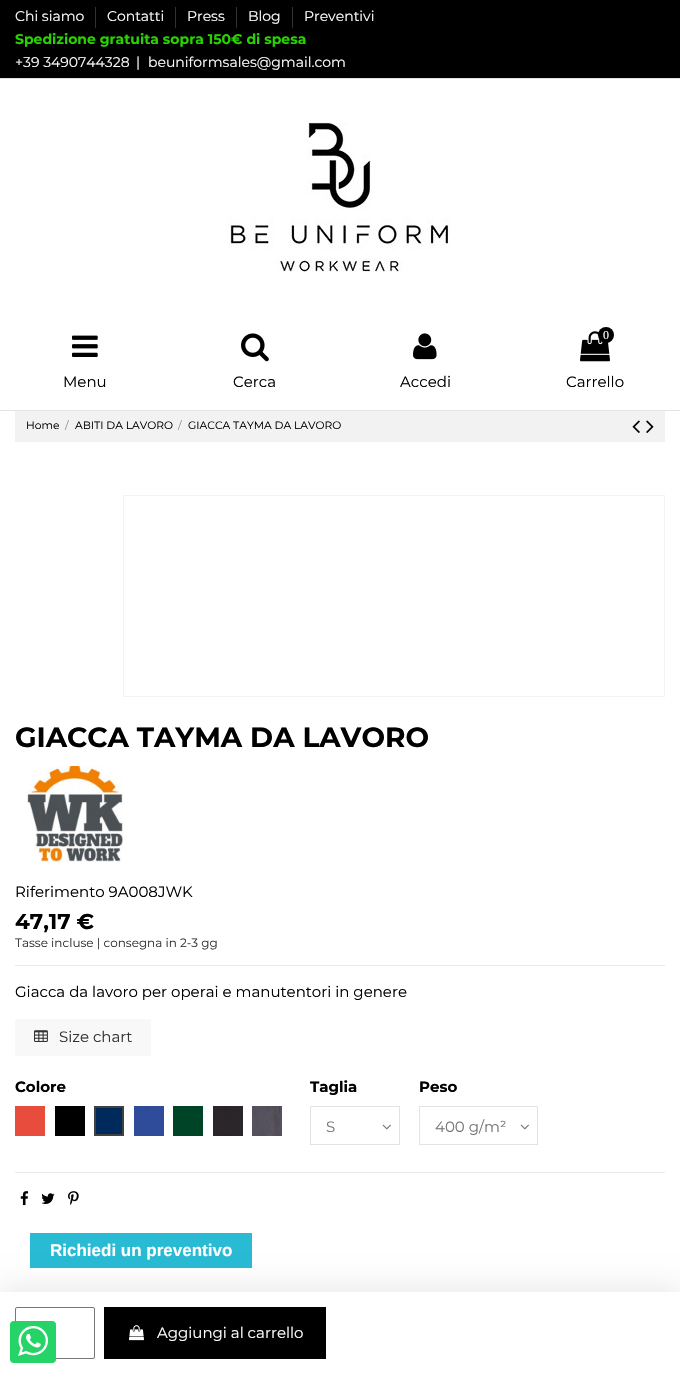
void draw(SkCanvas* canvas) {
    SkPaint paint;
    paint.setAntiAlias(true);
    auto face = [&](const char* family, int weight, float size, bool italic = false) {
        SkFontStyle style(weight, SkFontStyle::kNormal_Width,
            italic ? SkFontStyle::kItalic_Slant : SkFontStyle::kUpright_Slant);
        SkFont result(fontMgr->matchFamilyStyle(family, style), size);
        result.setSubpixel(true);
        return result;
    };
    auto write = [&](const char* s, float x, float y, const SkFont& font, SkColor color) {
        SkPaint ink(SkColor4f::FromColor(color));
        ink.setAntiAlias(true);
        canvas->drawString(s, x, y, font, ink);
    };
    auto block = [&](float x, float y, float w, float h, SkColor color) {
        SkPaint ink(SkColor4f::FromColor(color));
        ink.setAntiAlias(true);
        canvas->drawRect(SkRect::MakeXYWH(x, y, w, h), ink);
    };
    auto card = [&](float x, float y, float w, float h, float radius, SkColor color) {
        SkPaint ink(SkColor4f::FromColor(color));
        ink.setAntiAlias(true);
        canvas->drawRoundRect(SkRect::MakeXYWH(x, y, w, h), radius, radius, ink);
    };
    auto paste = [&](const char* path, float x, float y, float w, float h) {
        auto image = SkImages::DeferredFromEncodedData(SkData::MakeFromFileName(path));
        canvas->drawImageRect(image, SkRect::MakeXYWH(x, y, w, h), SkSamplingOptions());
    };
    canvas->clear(SK_ColorWHITE);
    block(0, 0, 680, 78, SK_ColorBLACK);
    block(0, 78, 680, 1, SkColorSetRGB(227, 227, 227));
    auto kFont1 = face("Montserrat", 400, 14);
    write("Chi siamo", 15, 21, kFont1, SK_ColorWHITE);
    block(95, 7, 1, 21, SkColorSetRGB(50, 50, 50));
    write("Contatti", 107, 21, kFont1, SK_ColorWHITE);
    block(175, 7, 1, 21, SkColorSetRGB(50, 50, 50));
    write("Press", 187, 21, kFont1, SK_ColorWHITE);
    block(236, 7, 1, 21, SkColorSetRGB(50, 50, 50));
    write("Blog", 248, 21, kFont1, SK_ColorWHITE);
    block(292, 7, 1, 21, SkColorSetRGB(50, 50, 50));
    write("Preventivi", 304, 21, kFont1, SK_ColorWHITE);
    auto kFont2 = face("Montserrat", 700, 14);
    write("Spedizione gratuita sopra 150€ di spesa", 15, 44, kFont2, SkColorSetRGB(40, 210, 0));
    write("+39 3490744328", 15, 67, kFont1, SK_ColorWHITE);
    write("|", 136, 67, kFont1, SK_ColorWHITE);
    write("beuniformsales@gmail.com", 148, 67, kFont1, SK_ColorWHITE);
    block(0, 410, 680, 1, SkColorSetRGB(227, 227, 227));
    paste("pic1.png", 227, 122, 224, 150);
    paste("pic2.png", 72, 335, 26, 22);
    auto kFont3 = face("Montserrat", 400, 15);
    write("Menu", 63, 387, kFont3, SK_ColorBLACK);
    paste("pic3.png", 241, 333, 28, 29);
    write("Cerca", 233, 387, kFont3, SK_ColorBLACK);
    paste("pic4.png", 413, 333, 24, 27);
    write("Accedi", 400, 387, kFont3, SK_ColorBLACK);
    paste("pic5.png", 580, 331, 30, 31);
    paint.setColor(SK_ColorBLACK);
    canvas->drawCircle(606, 335, 8, paint);
    auto kFont4 = face("Liberation Serif", 400, 12);
    write("0", 603, 339, kFont4, SK_ColorWHITE);
    write("Carrello", 566, 387, kFont3, SK_ColorBLACK);
    block(15, 411, 650, 31, SkColorSetRGB(242, 242, 242));
    auto kFont5 = face("Montserrat", 400, 10.75f);
    write("Home", 26, 429, kFont5, SK_ColorBLACK);
    write("/", 65, 429, kFont5, SkColorSetRGB(145, 145, 145));
    write("ABITI DA LAVORO", 75, 429, kFont5, SK_ColorBLACK);
    write("/", 178, 429, kFont5, SkColorSetRGB(145, 145, 145));
    write("GIACCA TAYMA DA LAVORO", 188, 429, kFont5, SK_ColorBLACK);
    paste("pic6.png", 632, 420, 8, 13);
    paste("pic7.png", 646, 420, 8, 13);
    paint.setStyle(SkPaint::kStroke_Style);
    paint.setStrokeWidth(1);
    paint.setColor(SkColorSetRGB(244, 242, 242));
    canvas->drawRect(SkRect::MakeXYWH(123.5f, 495.5f, 541, 201), paint);
    block(15, 965, 650, 1, SkColorSetRGB(232, 232, 232));
    auto kFont6 = face("Montserrat", 700, 27.9f);
    write("GIACCA TAYMA DA LAVORO", 15, 747, kFont6, SK_ColorBLACK);
    paste("pic8.png", 27, 766, 97, 96);
    write("Riferimento 9A008JWK", 15, 897, kFont3, SK_ColorBLACK);
    auto kFont7 = face("Montserrat", 700, 21.5f);
    write("47,17 €", 15, 929, kFont7, SK_ColorBLACK);
    auto kFont8 = face("Montserrat", 400, 12);
    write("Tasse incluse | consegna in 2-3 gg", 15, 947, kFont8, SkColorSetRGB(51, 51, 51));
    write("Giacca da lavoro per operai e manutentori in genere", 15, 997, kFont3, SK_ColorBLACK);
    block(15, 1019, 136, 37, SkColorSetRGB(248, 248, 248));
    paste("pic9.png", 34, 1030, 14, 12);
    write("Size chart", 59, 1042, kFont3, SkColorSetRGB(51, 51, 51));
    auto kFont9 = face("Montserrat", 700, 15);
    write("Colore", 15, 1092, kFont9, SK_ColorBLACK);
    block(15, 1106, 30, 30, SkColorSetRGB(232, 76, 61));
    block(55, 1106, 30, 30, SK_ColorBLACK);
    paint.setStyle(SkPaint::kFill_Style);
    paint.setColor(SkColorSetRGB(0, 41, 92));
    canvas->drawRect(SkRect::MakeXYWH(95, 1107, 28, 28), paint);
    paint.setStyle(SkPaint::kStroke_Style);
    paint.setStrokeWidth(2);
    paint.setColor(SkColorSetRGB(65, 65, 65));
    canvas->drawRect(SkRect::MakeXYWH(95, 1107, 28, 28), paint);
    paste("pic10.png", 134, 1106, 30, 30);
    block(173, 1106, 30, 30, SkColorSetRGB(0, 68, 39));
    paste("pic11.png", 213, 1106, 30, 30);
    paste("pic12.png", 252, 1106, 30, 30);
    write("Taglia", 310, 1092, kFont9, SK_ColorBLACK);
    paste("pic13.png", 382, 1124, 9, 6);
    paint.setStrokeWidth(1);
    paint.setColor(SkColorSetRGB(227, 227, 227));
    canvas->drawRect(SkRect::MakeXYWH(310.5f, 1106.5f, 89, 38), paint);
    write("S", 326, 1132, kFont3, SkColorSetRGB(119, 119, 119));
    write("Peso", 419, 1092, kFont9, SK_ColorBLACK);
    paste("pic13.png", 520, 1124, 9, 6);
    canvas->drawRect(SkRect::MakeXYWH(419.5f, 1106.5f, 118, 38), paint);
    write("400 g/m²", 435, 1132, kFont3, SkColorSetRGB(119, 119, 119));
    block(30, 1233, 222, 35, SkColorSetRGB(41, 187, 212));
    paint.setStyle(SkPaint::kFill_Style);
    paint.setColor(SkColorSetARGB(23, 0, 0, 0));
    paint.setMaskFilter(SkMaskFilter::MakeBlur(kNormal_SkBlurStyle, 15));
    canvas->drawRect(SkRect::MakeXYWH(0, 1288, 680, 91), paint);
    paint.setMaskFilter(nullptr);
    block(0, 1292, 680, 91, SK_ColorWHITE);
    paint.setStyle(SkPaint::kStroke_Style);
    paint.setColor(SkColorSetRGB(118, 118, 118));
    canvas->drawRoundRect(SkRect::MakeXYWH(15.5f, 1307.5f, 79, 51), 1.5f, 1.5f, paint);
    block(104, 1307, 222, 52, SK_ColorBLACK);
    paste("pic14.png", 129, 1325, 15, 16);
    write("Aggiungi al carrello", 157, 1338, kFont3, SK_ColorWHITE);
    block(15, 1172, 650, 1, SkColorSetRGB(232, 232, 232));
    paste("pic15.png", 20, 1191, 9, 15);
    paste("pic16.png", 41, 1193, 14, 11);
    paste("pic17.png", 68, 1191, 11, 14);
    auto kFont10 = face("Liberation Sans", 700, 17);
    write("Richiedi un preventivo", 50, 1256, kFont10, SK_ColorWHITE);
    card(10, 1321, 46, 42, 4, SkColorSetRGB(37, 211, 102));
    paste("pic18.png", 18, 1326, 30, 30);
}
